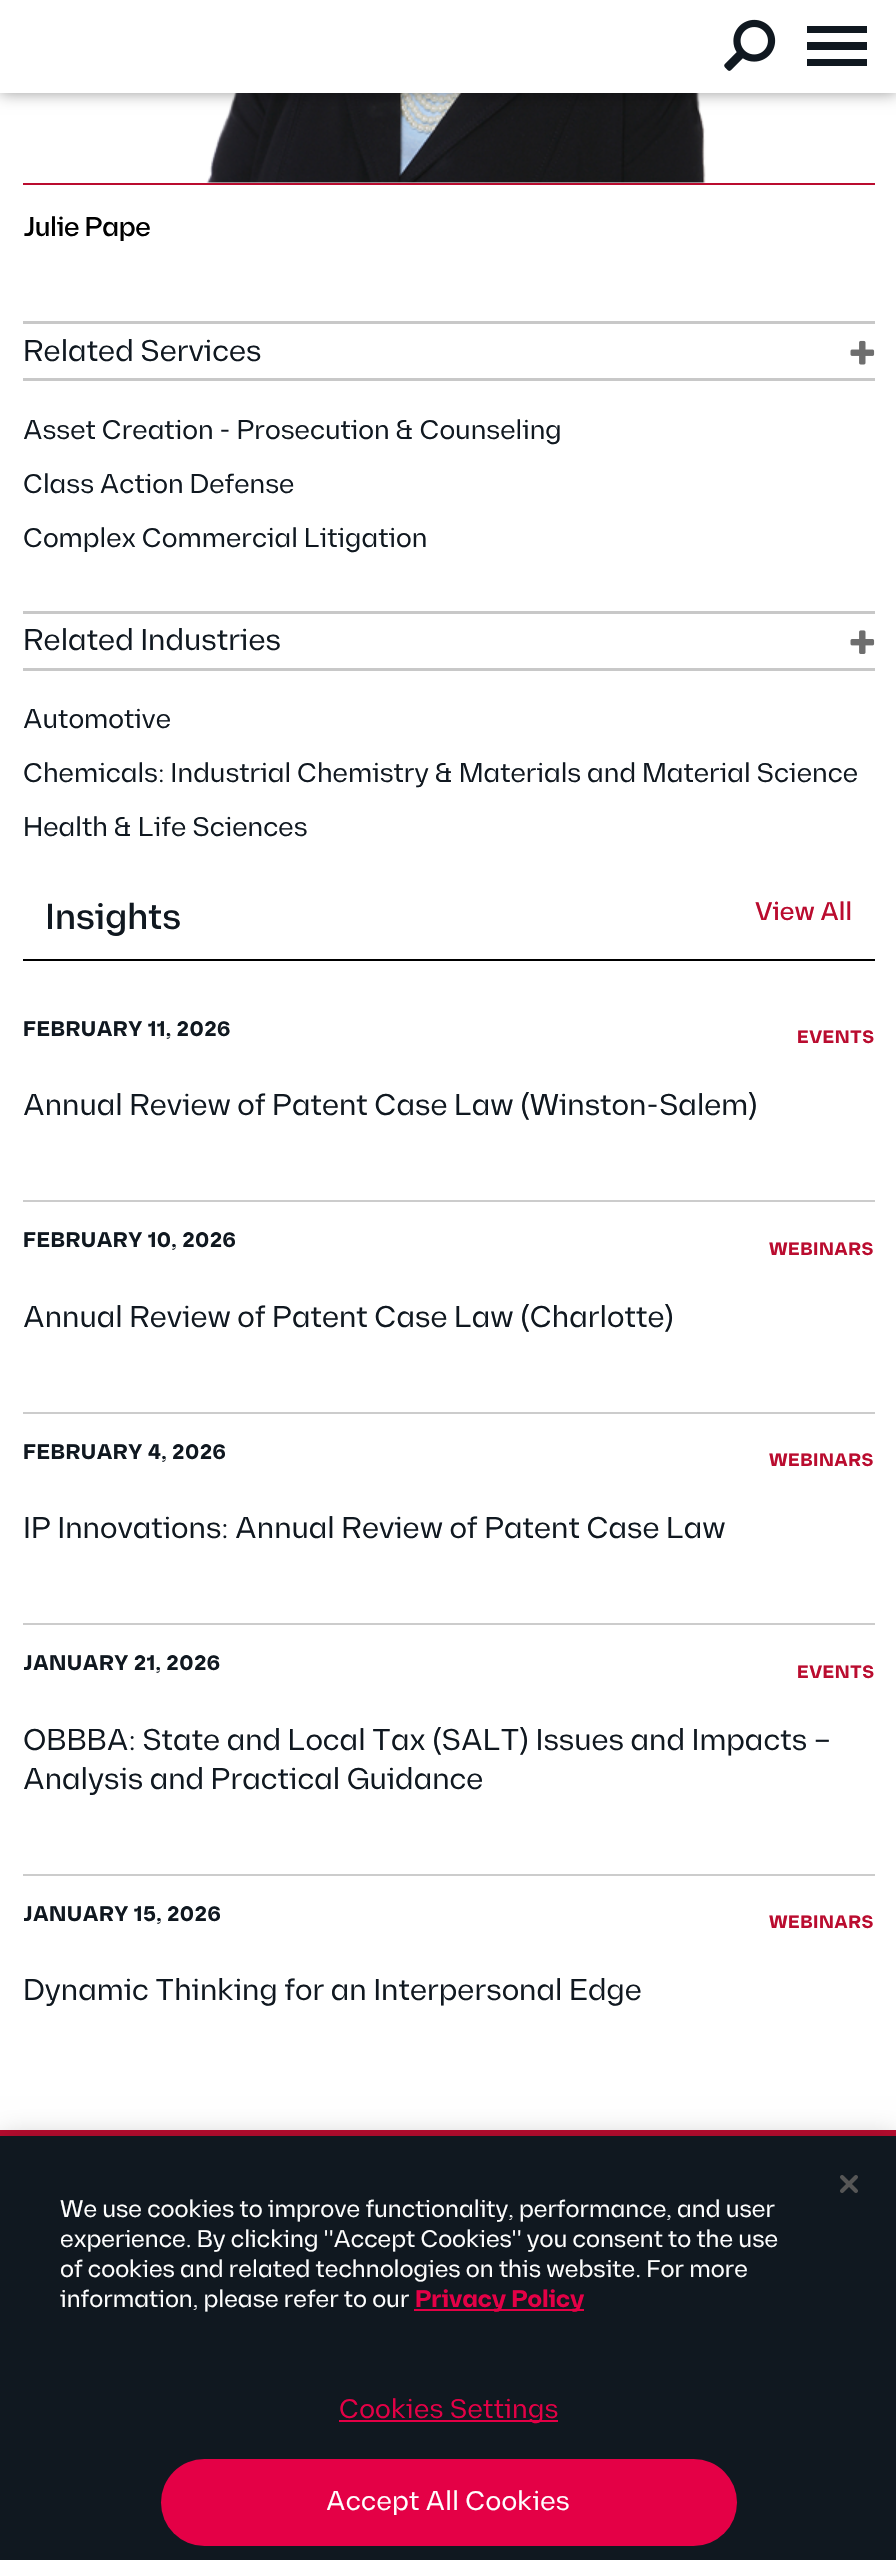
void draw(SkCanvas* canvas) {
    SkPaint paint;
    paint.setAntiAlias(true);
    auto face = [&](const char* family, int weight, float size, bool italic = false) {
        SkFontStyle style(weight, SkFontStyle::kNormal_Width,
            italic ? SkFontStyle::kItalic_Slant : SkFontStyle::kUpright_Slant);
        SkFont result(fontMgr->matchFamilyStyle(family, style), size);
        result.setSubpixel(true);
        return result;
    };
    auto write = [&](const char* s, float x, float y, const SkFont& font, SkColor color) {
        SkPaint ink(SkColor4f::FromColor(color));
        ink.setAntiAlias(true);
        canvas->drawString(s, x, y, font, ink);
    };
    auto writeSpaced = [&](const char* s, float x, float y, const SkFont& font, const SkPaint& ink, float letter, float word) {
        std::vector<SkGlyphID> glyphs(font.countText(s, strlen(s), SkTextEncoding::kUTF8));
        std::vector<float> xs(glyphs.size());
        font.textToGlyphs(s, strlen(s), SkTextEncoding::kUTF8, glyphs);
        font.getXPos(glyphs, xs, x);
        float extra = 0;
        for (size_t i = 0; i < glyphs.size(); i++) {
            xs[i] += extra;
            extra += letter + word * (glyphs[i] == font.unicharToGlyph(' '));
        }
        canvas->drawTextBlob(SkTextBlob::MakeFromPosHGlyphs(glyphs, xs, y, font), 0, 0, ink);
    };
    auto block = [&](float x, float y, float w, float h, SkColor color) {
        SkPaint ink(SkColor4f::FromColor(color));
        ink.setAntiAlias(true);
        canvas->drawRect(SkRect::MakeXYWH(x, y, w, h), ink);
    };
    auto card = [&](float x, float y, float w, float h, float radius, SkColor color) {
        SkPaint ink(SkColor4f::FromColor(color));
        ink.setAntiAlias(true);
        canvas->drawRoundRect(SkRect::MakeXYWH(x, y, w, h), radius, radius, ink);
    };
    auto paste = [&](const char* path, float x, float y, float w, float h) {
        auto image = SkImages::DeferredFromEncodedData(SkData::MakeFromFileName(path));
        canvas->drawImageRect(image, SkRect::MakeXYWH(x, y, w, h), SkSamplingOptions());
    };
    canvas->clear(SK_ColorWHITE);
    paste("pic2.png", 206, 93, 500, 90);
    paint.setColor(SkColorSetARGB(102, 0, 0, 0));
    paint.setMaskFilter(SkMaskFilter::MakeBlur(kNormal_SkBlurStyle, 7.5f));
    canvas->drawRect(SkRect::MakeXYWH(0, 0, 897, 93), paint);
    paint.setMaskFilter(nullptr);
    block(0, 0, 896, 93, SK_ColorWHITE);
    paste("pic1.png", 724, 19, 52, 52);
    block(807, 42, 60, 8, SkColorSetRGB(16, 24, 32));
    block(807, 26, 60, 7, SkColorSetRGB(16, 24, 32));
    block(807, 59, 60, 7, SkColorSetRGB(16, 24, 32));
    block(23, 183, 852, 2, SkColorSetRGB(186, 12, 47));
    auto kFont1 = face("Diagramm", 500, 27);
    paint.setColor(SK_ColorBLACK);
    writeSpaced("Julie Pape", 23, 236, kFont1, paint, -0.4f, 0);
    block(23, 321, 852, 3, SkColorSetRGB(200, 200, 200));
    block(23, 378, 852, 3, SkColorSetRGB(200, 200, 200));
    auto kFont2 = face("Diagramm", 400, 30);
    write("Related Services", 23, 361, kFont2, SkColorSetRGB(16, 24, 32));
    paste("pic3.png", 850, 340, 25, 25);
    auto kFont3 = face("Diagramm", 400, 27);
    write("Asset Creation - Prosecution & Counseling", 23, 439, kFont3, SkColorSetRGB(16, 24, 32));
    write("Class Action Defense", 23, 493, kFont3, SkColorSetRGB(16, 24, 32));
    write("Complex Commercial Litigation", 23, 547, kFont3, SkColorSetRGB(16, 24, 32));
    block(23, 611, 852, 3, SkColorSetRGB(200, 200, 200));
    block(23, 668, 852, 3, SkColorSetRGB(200, 200, 200));
    write("Related Industries", 23, 650, kFont2, SkColorSetRGB(16, 24, 32));
    paste("pic4.png", 850, 630, 25, 24);
    write("Automotive", 23, 728, kFont3, SkColorSetRGB(16, 24, 32));
    write("Chemicals: Industrial Chemistry & Materials and Material Science", 23, 782, kFont3, SkColorSetRGB(16, 24, 32));
    write("Health & Life Sciences", 23, 836, kFont3, SkColorSetRGB(16, 24, 32));
    block(23, 959, 852, 2, SK_ColorBLACK);
    auto kFont4 = face("Diagramm", 500, 36);
    write("Insights", 45, 929, kFont4, SkColorSetRGB(16, 24, 32));
    auto kFont5 = face("Diagramm", 500, 25.5f);
    write("View All", 755, 920, kFont5, SkColorSetRGB(186, 12, 47));
    block(23, 1200, 852, 2, SkColorSetRGB(204, 204, 204));
    auto kFont6 = face("Diagramm", 700, 21);
    paint.setColor(SkColorSetRGB(16, 24, 32));
    writeSpaced("FEBRUARY 11, 2026", 23, 1036, kFont6, paint, 0.5f, 0);
    auto kFont7 = face("Diagramm", 700, 18);
    paint.setColor(SkColorSetRGB(186, 12, 47));
    writeSpaced("EVENTS", 797, 1043, kFont7, paint, 0.5f, 0);
    write("Annual Review of Patent Case Law (Winston-Salem)", 23, 1115, kFont2, SkColorSetRGB(16, 24, 32));
    block(23, 1412, 852, 2, SkColorSetRGB(204, 204, 204));
    paint.setColor(SkColorSetRGB(16, 24, 32));
    writeSpaced("FEBRUARY 10, 2026", 23, 1247, kFont6, paint, 0.5f, 0);
    paint.setColor(SkColorSetRGB(186, 12, 47));
    writeSpaced("WEBINARS", 769, 1255, kFont7, paint, 0.5f, 0);
    write("Annual Review of Patent Case Law (Charlotte)", 23, 1327, kFont2, SkColorSetRGB(16, 24, 32));
    block(23, 1623, 852, 2, SkColorSetRGB(204, 204, 204));
    paint.setColor(SkColorSetRGB(16, 24, 32));
    writeSpaced("FEBRUARY 4, 2026", 23, 1459, kFont6, paint, 0.5f, 0);
    paint.setColor(SkColorSetRGB(186, 12, 47));
    writeSpaced("WEBINARS", 769, 1466, kFont7, paint, 0.5f, 0);
    write("IP Innovations: Annual Review of Patent Case Law", 23, 1538, kFont2, SkColorSetRGB(16, 24, 32));
    block(23, 1874, 852, 2, SkColorSetRGB(204, 204, 204));
    paint.setColor(SkColorSetRGB(16, 24, 32));
    writeSpaced("JANUARY 21, 2026", 23, 1670, kFont6, paint, 0.5f, 0);
    paint.setColor(SkColorSetRGB(186, 12, 47));
    writeSpaced("EVENTS", 797, 1678, kFont7, paint, 0.5f, 0);
    write("OBBBA: State and Local Tax (SALT) Issues and Impacts –", 23, 1750, kFont2, SkColorSetRGB(16, 24, 32));
    write("Analysis and Practical Guidance", 23, 1789, kFont2, SkColorSetRGB(16, 24, 32));
    paint.setColor(SkColorSetRGB(16, 24, 32));
    writeSpaced("JANUARY 15, 2026", 23, 1921, kFont6, paint, 0.5f, 0);
    paint.setColor(SkColorSetRGB(186, 12, 47));
    writeSpaced("WEBINARS", 769, 1928, kFont7, paint, 0.5f, 0);
    write("Dynamic Thinking for an Interpersonal Edge", 23, 2000, kFont2, SkColorSetRGB(16, 24, 32));
    block(0, 2130, 896, 6, SkColorSetRGB(186, 12, 47));
    paint.setColor(SkColorSetARGB(51, 0, 0, 0));
    paint.setMaskFilter(SkMaskFilter::MakeBlur(kNormal_SkBlurStyle, 13.5f));
    canvas->drawRect(SkRect::MakeXYWH(0, 2136, 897, 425), paint);
    paint.setMaskFilter(nullptr);
    block(0, 2136, 896, 424, SkColorSetRGB(16, 24, 32));
    paste("pic5.png", 840, 2175, 18, 18);
    auto kFont8 = face("Diagramm", 400, 24);
    write("We use cookies to improve functionality, performance, and user", 60, 2217, kFont8, SK_ColorWHITE);
    write("experience. By clicking \"Accept Cookies\" you consent to the use", 60, 2247, kFont8, SK_ColorWHITE);
    write("of cookies and related technologies on this website. For more", 60, 2277, kFont8, SK_ColorWHITE);
    write("information, please refer to our", 60, 2307, kFont8, SK_ColorWHITE);
    block(414, 2309, 170, 2, SkColorSetRGB(228, 0, 70));
    auto kFont9 = face("Diagramm", 700, 24);
    write("Privacy Policy", 415, 2307, kFont9, SkColorSetRGB(228, 0, 70));
    block(339, 2420, 219, 2, SkColorSetRGB(228, 0, 70));
    paint.setColor(SkColorSetRGB(228, 0, 70));
    writeSpaced("Cookies Settings", 339, 2418, kFont3, paint, 0.25f, 0);
    card(161, 2459, 576, 87, 43.5f, SkColorSetRGB(228, 0, 70));
    paint.setColor(SK_ColorWHITE);
    writeSpaced("Accept All Cookies", 326, 2510, kFont3, paint, 0.25f, 0);
}
